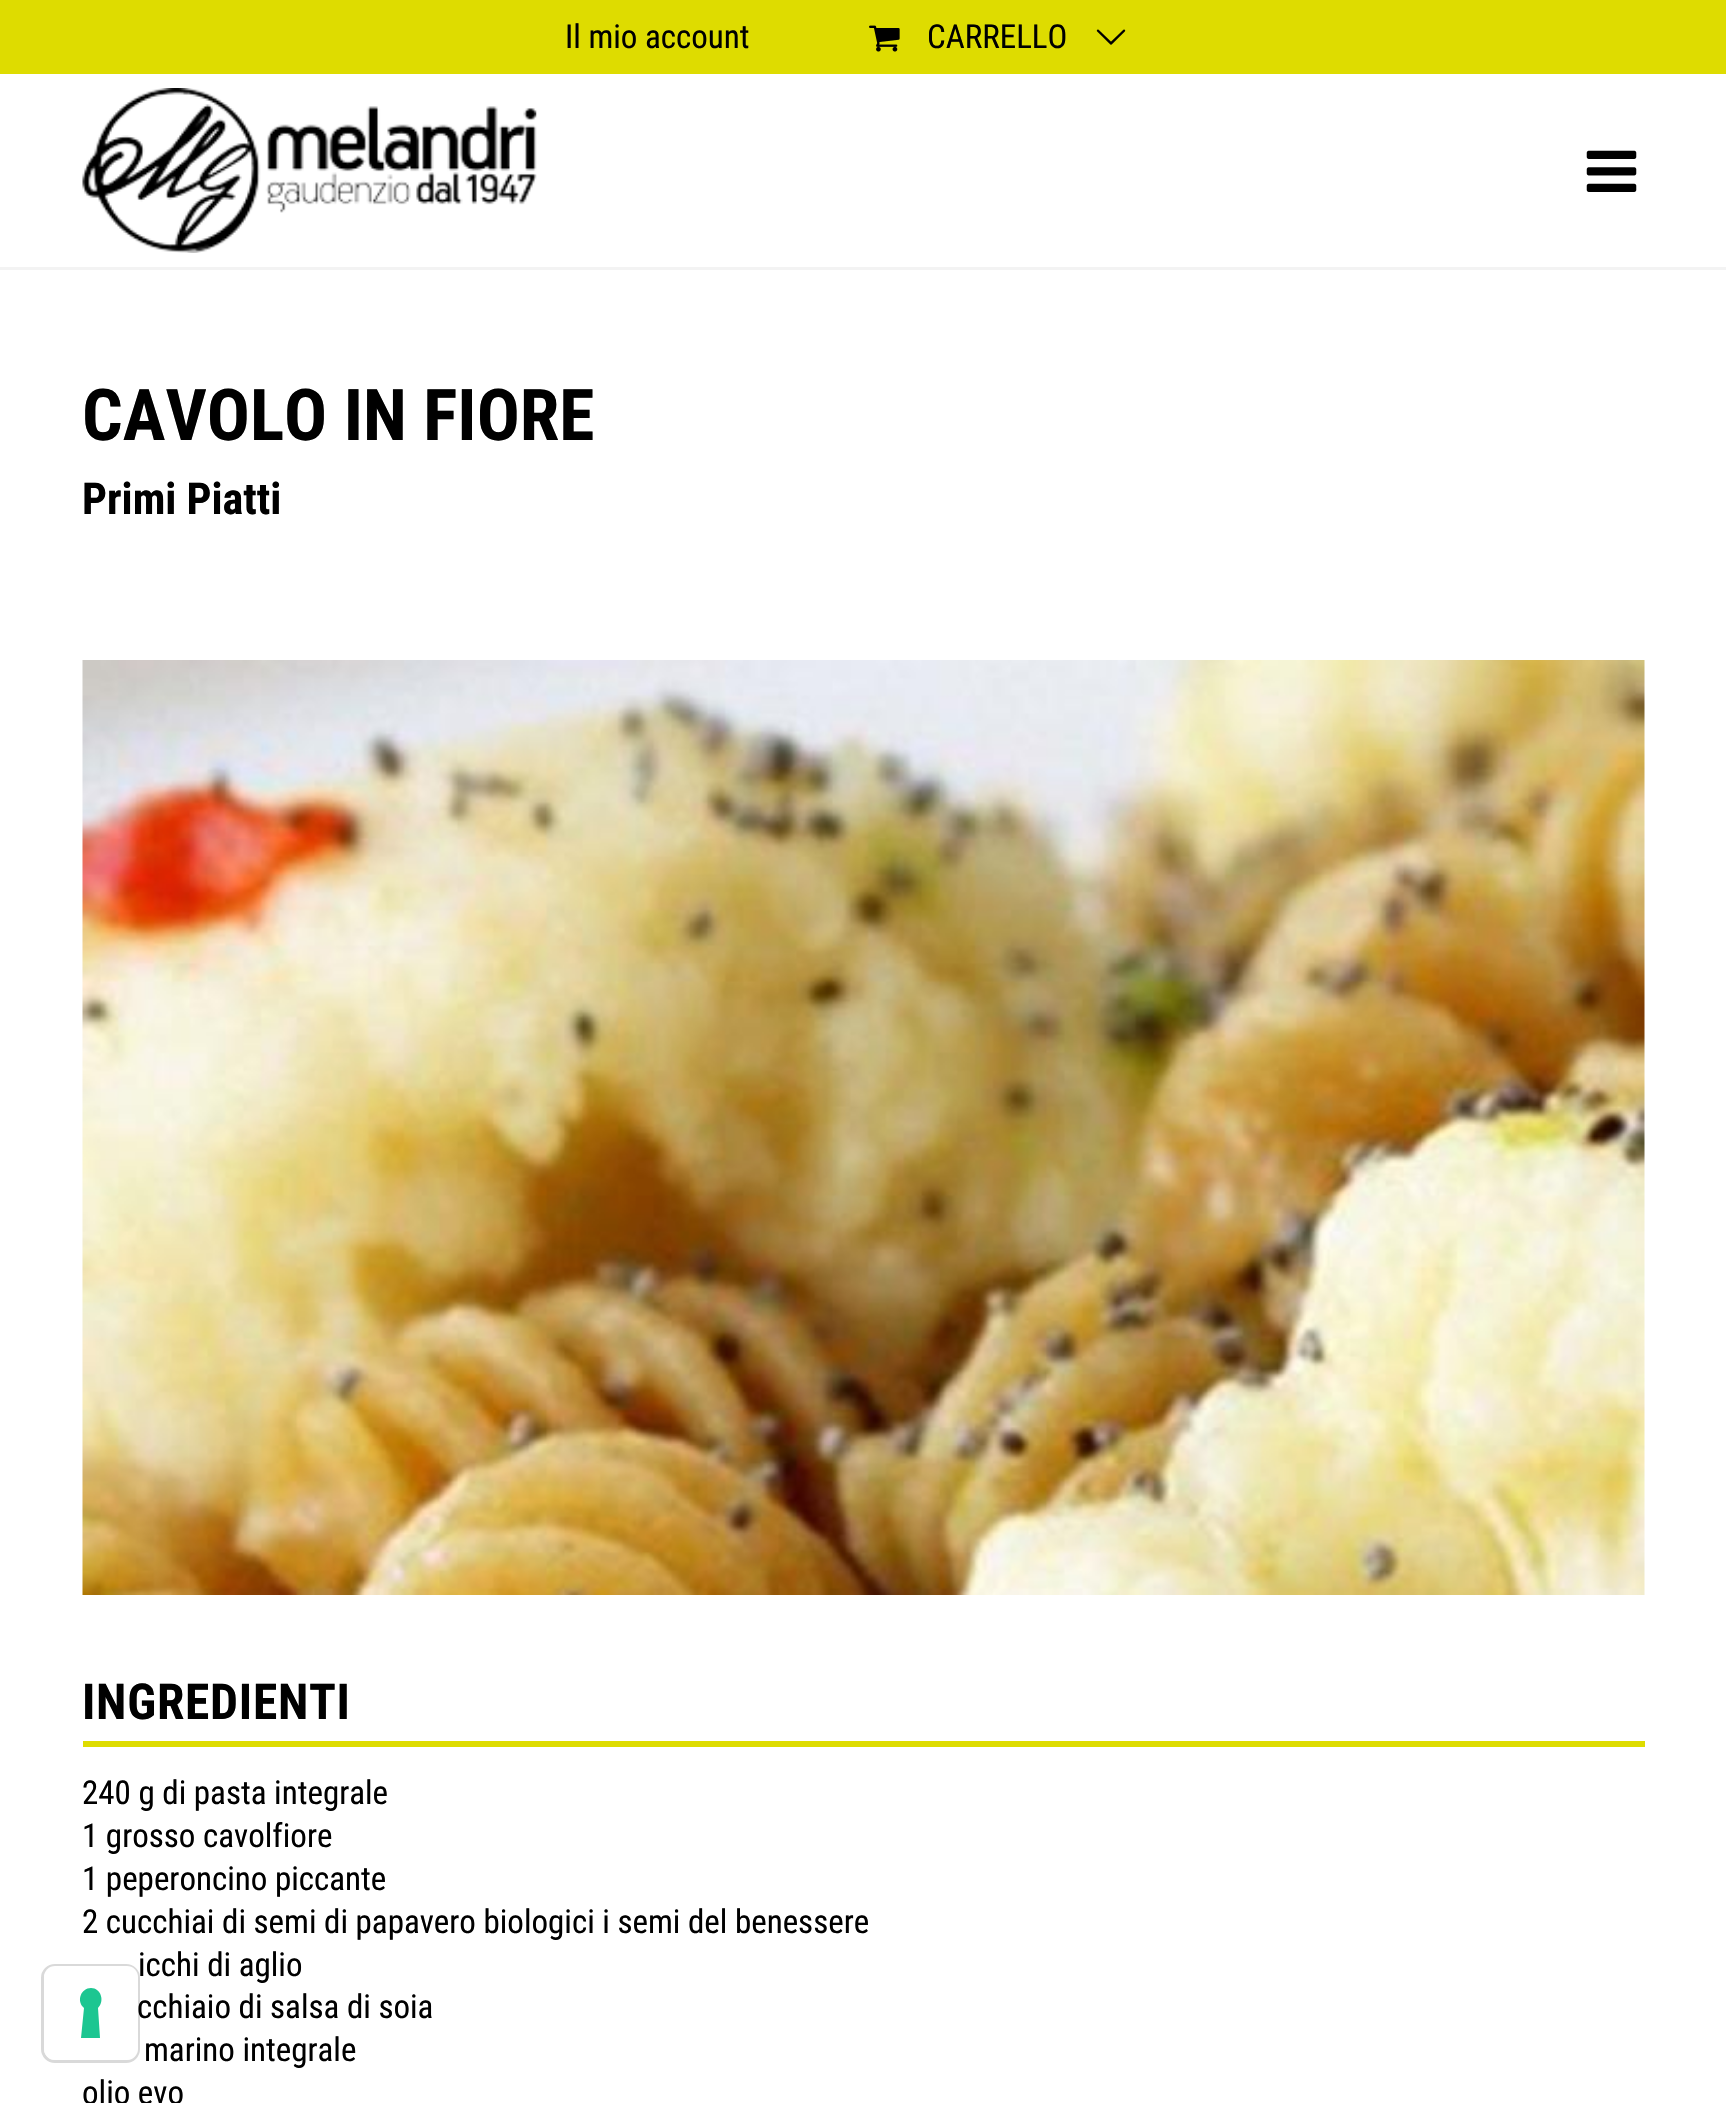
void draw(SkCanvas* canvas) {
    SkPaint paint;
    paint.setAntiAlias(true);
    auto face = [&](const char* family, int weight, float size, bool italic = false) {
        SkFontStyle style(weight, SkFontStyle::kNormal_Width,
            italic ? SkFontStyle::kItalic_Slant : SkFontStyle::kUpright_Slant);
        SkFont result(fontMgr->matchFamilyStyle(family, style), size);
        result.setSubpixel(true);
        return result;
    };
    auto write = [&](const char* s, float x, float y, const SkFont& font, SkColor color) {
        SkPaint ink(SkColor4f::FromColor(color));
        ink.setAntiAlias(true);
        canvas->drawString(s, x, y, font, ink);
    };
    auto writeSpaced = [&](const char* s, float x, float y, const SkFont& font, const SkPaint& ink, float letter, float word) {
        std::vector<SkGlyphID> glyphs(font.countText(s, strlen(s), SkTextEncoding::kUTF8));
        std::vector<float> xs(glyphs.size());
        font.textToGlyphs(s, strlen(s), SkTextEncoding::kUTF8, glyphs);
        font.getXPos(glyphs, xs, x);
        float extra = 0;
        for (size_t i = 0; i < glyphs.size(); i++) {
            xs[i] += extra;
            extra += letter + word * (glyphs[i] == font.unicharToGlyph(' '));
        }
        canvas->drawTextBlob(SkTextBlob::MakeFromPosHGlyphs(glyphs, xs, y, font), 0, 0, ink);
    };
    auto block = [&](float x, float y, float w, float h, SkColor color) {
        SkPaint ink(SkColor4f::FromColor(color));
        ink.setAntiAlias(true);
        canvas->drawRect(SkRect::MakeXYWH(x, y, w, h), ink);
    };
    auto card = [&](float x, float y, float w, float h, float radius, SkColor color) {
        SkPaint ink(SkColor4f::FromColor(color));
        ink.setAntiAlias(true);
        canvas->drawRoundRect(SkRect::MakeXYWH(x, y, w, h), radius, radius, ink);
    };
    auto paste = [&](const char* path, float x, float y, float w, float h) {
        auto image = SkImages::DeferredFromEncodedData(SkData::MakeFromFileName(path));
        canvas->drawImageRect(image, SkRect::MakeXYWH(x, y, w, h), SkSamplingOptions());
    };
    canvas->clear(SK_ColorWHITE);
    block(0, 0, 1726, 74, SkColorSetRGB(222, 220, 0));
    auto kFont1 = face("Roboto Condensed", 400, 33);
    write("Il mio account", 565, 48, kFont1, SK_ColorBLACK);
    paste("pic1.png", 869, 25, 31, 27);
    write("CARRELLO", 927, 48, kFont1, SK_ColorBLACK);
    paste("pic2.png", 1096, 29, 30, 16);
    block(0, 267, 1726, 3, SkColorSetRGB(243, 243, 243));
    paste("pic3.png", 82, 88, 455, 165);
    paste("pic4.png", 1586, 150, 51, 42);
    auto kFont2 = face("Roboto Condensed", 700, 71.5f);
    write("CAVOLO IN FIORE", 82, 440, kFont2, SK_ColorBLACK);
    auto kFont3 = face("Roboto Condensed", 700, 44);
    write("Primi Piatti", 82, 514, kFont3, SK_ColorBLACK);
    paste("pic5.png", 82, 660, 1563, 935);
    block(83, 1741, 1562, 6, SkColorSetRGB(222, 220, 0));
    auto kFont4 = face("Roboto Condensed", 700, 49.5f);
    paint.setColor(SK_ColorBLACK);
    writeSpaced("INGREDIENTI", 82, 1719, kFont4, paint, 0.75f, 0);
    write("240 g di pasta integrale", 82, 1804, kFont1, SK_ColorBLACK);
    write("1 grosso cavolfiore", 82, 1847, kFont1, SK_ColorBLACK);
    write("1 peperoncino piccante", 82, 1890, kFont1, SK_ColorBLACK);
    write("2 cucchiai di semi di papavero biologici i semi del benessere", 82, 1933, kFont1, SK_ColorBLACK);
    write("icchi di aglio", 138, 1976, kFont1, SK_ColorBLACK);
    write("cchiaio di salsa di soia", 137, 2018, kFont1, SK_ColorBLACK);
    write("marino integrale", 144, 2061, kFont1, SK_ColorBLACK);
    write("olio evo", 82, 2104, kFont1, SK_ColorBLACK);
    paint.setStyle(SkPaint::kStroke_Style);
    paint.setStrokeWidth(3);
    paint.setColor(SkColorSetARGB(38, 0, 0, 0));
    canvas->drawRoundRect(SkRect::MakeXYWH(42.5f, 1965.5f, 96, 96), 12.5f, 12.5f, paint);
    card(44, 1966, 94, 94, 11, SK_ColorWHITE);
    paint.setStyle(SkPaint::kFill_Style);
    paint.setColor(SkColorSetRGB(28, 198, 145));
    canvas->drawPath(SkPathBuilder(SkPathFillType::kEvenOdd).moveTo(91, 1988).cubicTo(101, 1988, 105, 2001, 98, 2008).lineTo(100, 2038).lineTo(81, 2038).lineTo(84, 2008).cubicTo(76, 2001, 81, 1988, 91, 1988).close().detach(), paint);
}
